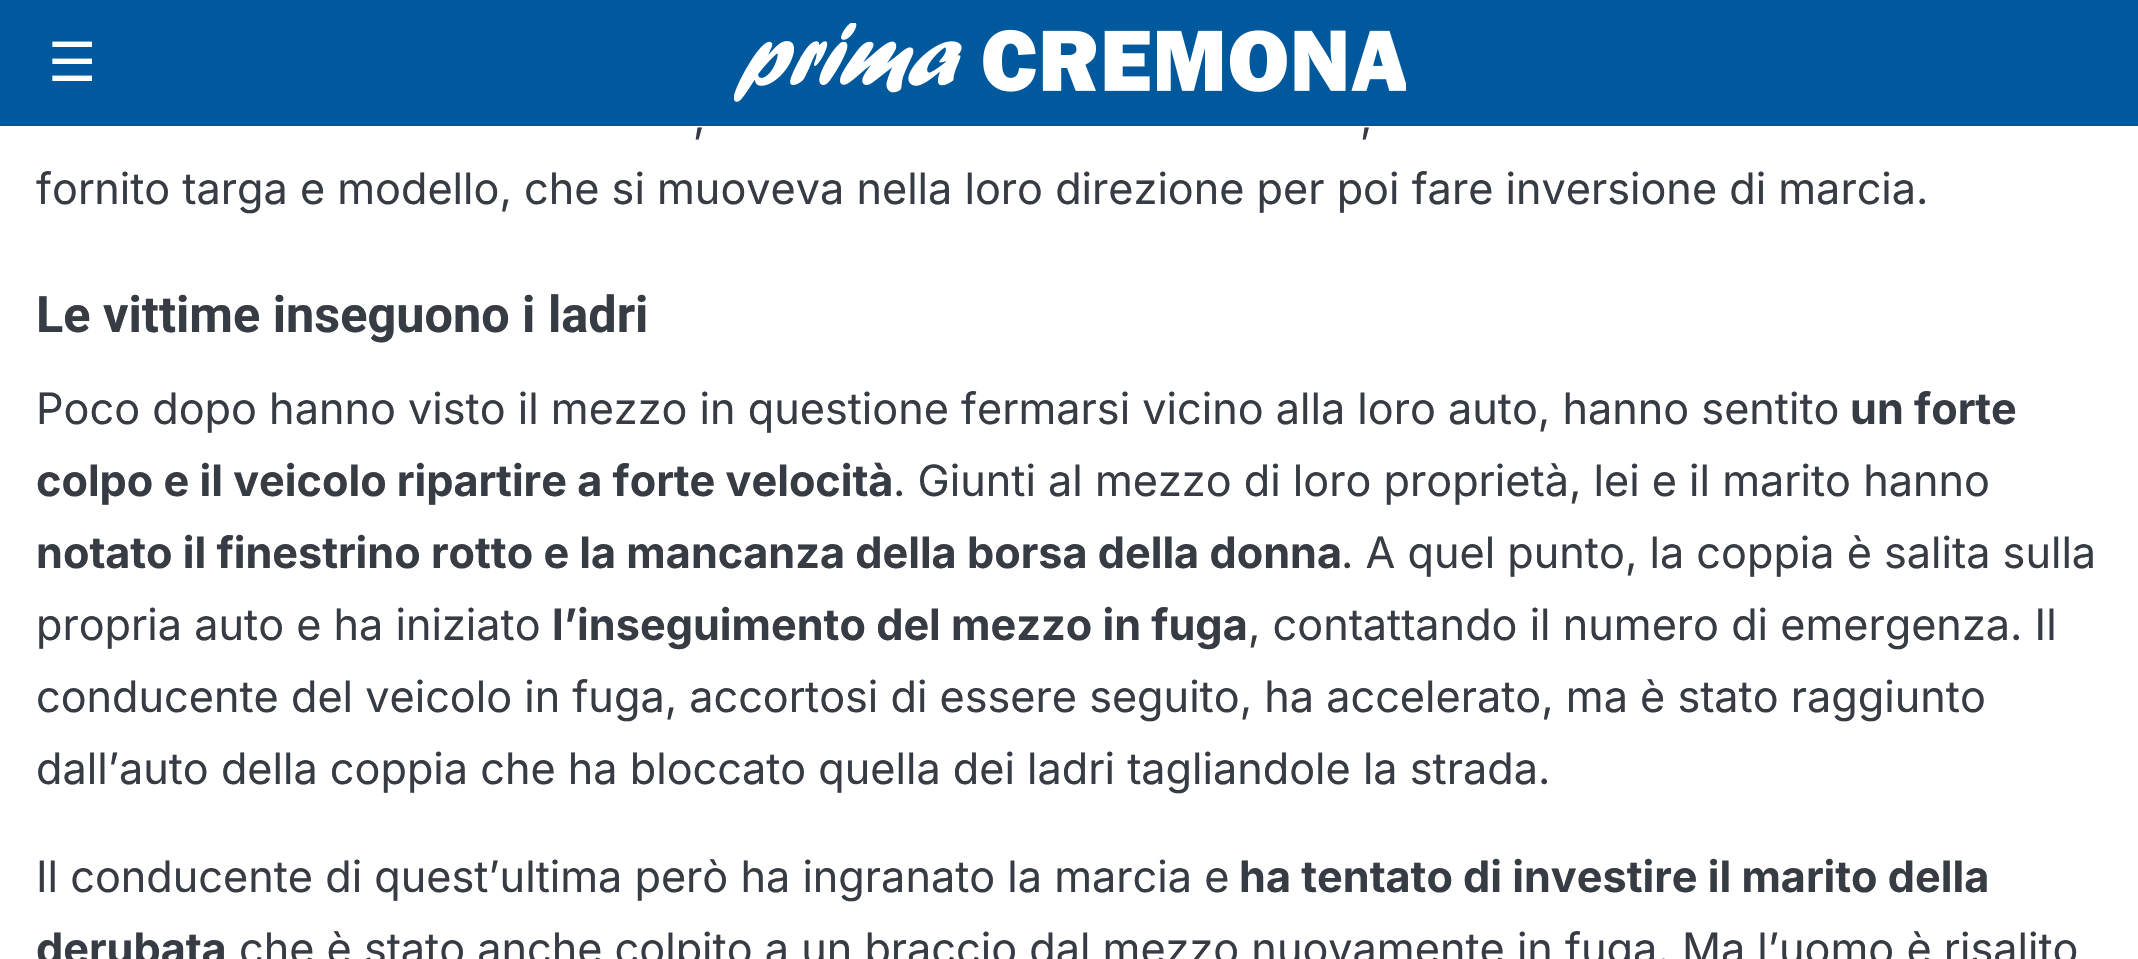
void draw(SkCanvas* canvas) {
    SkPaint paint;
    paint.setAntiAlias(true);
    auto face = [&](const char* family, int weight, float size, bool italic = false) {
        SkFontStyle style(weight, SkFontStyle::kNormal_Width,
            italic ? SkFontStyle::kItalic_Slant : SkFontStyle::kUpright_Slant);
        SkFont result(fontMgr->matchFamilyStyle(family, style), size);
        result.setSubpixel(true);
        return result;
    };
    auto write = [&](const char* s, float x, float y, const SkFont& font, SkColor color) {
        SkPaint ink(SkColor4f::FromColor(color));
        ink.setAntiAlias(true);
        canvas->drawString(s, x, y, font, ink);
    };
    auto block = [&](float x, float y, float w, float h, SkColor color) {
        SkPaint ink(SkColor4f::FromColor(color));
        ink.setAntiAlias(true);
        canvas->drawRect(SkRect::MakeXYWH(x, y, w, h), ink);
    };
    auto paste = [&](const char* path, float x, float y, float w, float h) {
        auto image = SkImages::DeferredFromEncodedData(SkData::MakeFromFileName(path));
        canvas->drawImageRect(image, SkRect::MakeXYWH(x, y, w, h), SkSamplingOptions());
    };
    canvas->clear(SK_ColorWHITE);
    block(0, 0, 2138, 126, SkColorSetRGB(0, 89, 156));
    auto kFont1 = face("DejaVu Sans", 400, 54);
    write("☰", 48, 81, kFont1, SK_ColorWHITE);
    paste("pic1.png", 734, 23, 672, 79);
    auto kFont2 = face("Inter", 400, 43.2f);
    write(",", 693, 132, kFont2, SkColorSetRGB(55, 60, 68));
    write(",", 1360, 132, kFont2, SkColorSetRGB(55, 60, 68));
    write("fornito targa e modello, che si muoveva nella loro direzione per poi fare inversione di marcia.", 36, 204, kFont2, SkColorSetRGB(55, 60, 68));
    auto kFont3 = face("Roboto", 700, 50.4f);
    write("Le vittime inseguono i ladri", 36, 332, kFont3, SkColorSetRGB(55, 60, 68));
    write("Poco dopo hanno visto il mezzo in questione fermarsi vicino alla loro auto, hanno sentito", 36, 424, kFont2, SkColorSetRGB(55, 60, 68));
    auto kFont4 = face("Inter", 700, 43.2f);
    write("un forte", 1850, 424, kFont4, SkColorSetRGB(55, 60, 68));
    write("colpo e il veicolo ripartire a forte velocità", 36, 496, kFont4, SkColorSetRGB(55, 60, 68));
    write(". Giunti al mezzo di loro proprietà, lei e il marito hanno", 893, 496, kFont2, SkColorSetRGB(55, 60, 68));
    write("notato il finestrino rotto e la mancanza della borsa della donna", 36, 568, kFont4, SkColorSetRGB(55, 60, 68));
    write(". A quel punto, la coppia è salita sulla", 1341, 568, kFont2, SkColorSetRGB(55, 60, 68));
    write("propria auto e ha iniziato", 36, 640, kFont2, SkColorSetRGB(55, 60, 68));
    write("l’inseguimento del mezzo in fuga", 552, 640, kFont4, SkColorSetRGB(55, 60, 68));
    write(", contattando il numero di emergenza. Il", 1248, 640, kFont2, SkColorSetRGB(55, 60, 68));
    write("conducente del veicolo in fuga, accortosi di essere seguito, ha accelerato, ma è stato raggiunto", 36, 712, kFont2, SkColorSetRGB(55, 60, 68));
    write("dall’auto della coppia che ha bloccato quella dei ladri tagliandole la strada.", 36, 784, kFont2, SkColorSetRGB(55, 60, 68));
    write("Il conducente di quest’ultima però ha ingranato la marcia e", 36, 892, kFont2, SkColorSetRGB(55, 60, 68));
    write("ha tentato di investire il marito della", 1239, 892, kFont4, SkColorSetRGB(55, 60, 68));
    write("derubata", 36, 964, kFont4, SkColorSetRGB(55, 60, 68));
    write("che è stato anche colpito a un braccio dal mezzo nuovamente in fuga. Ma l’uomo è risalito", 239, 964, kFont2, SkColorSetRGB(55, 60, 68));
}
